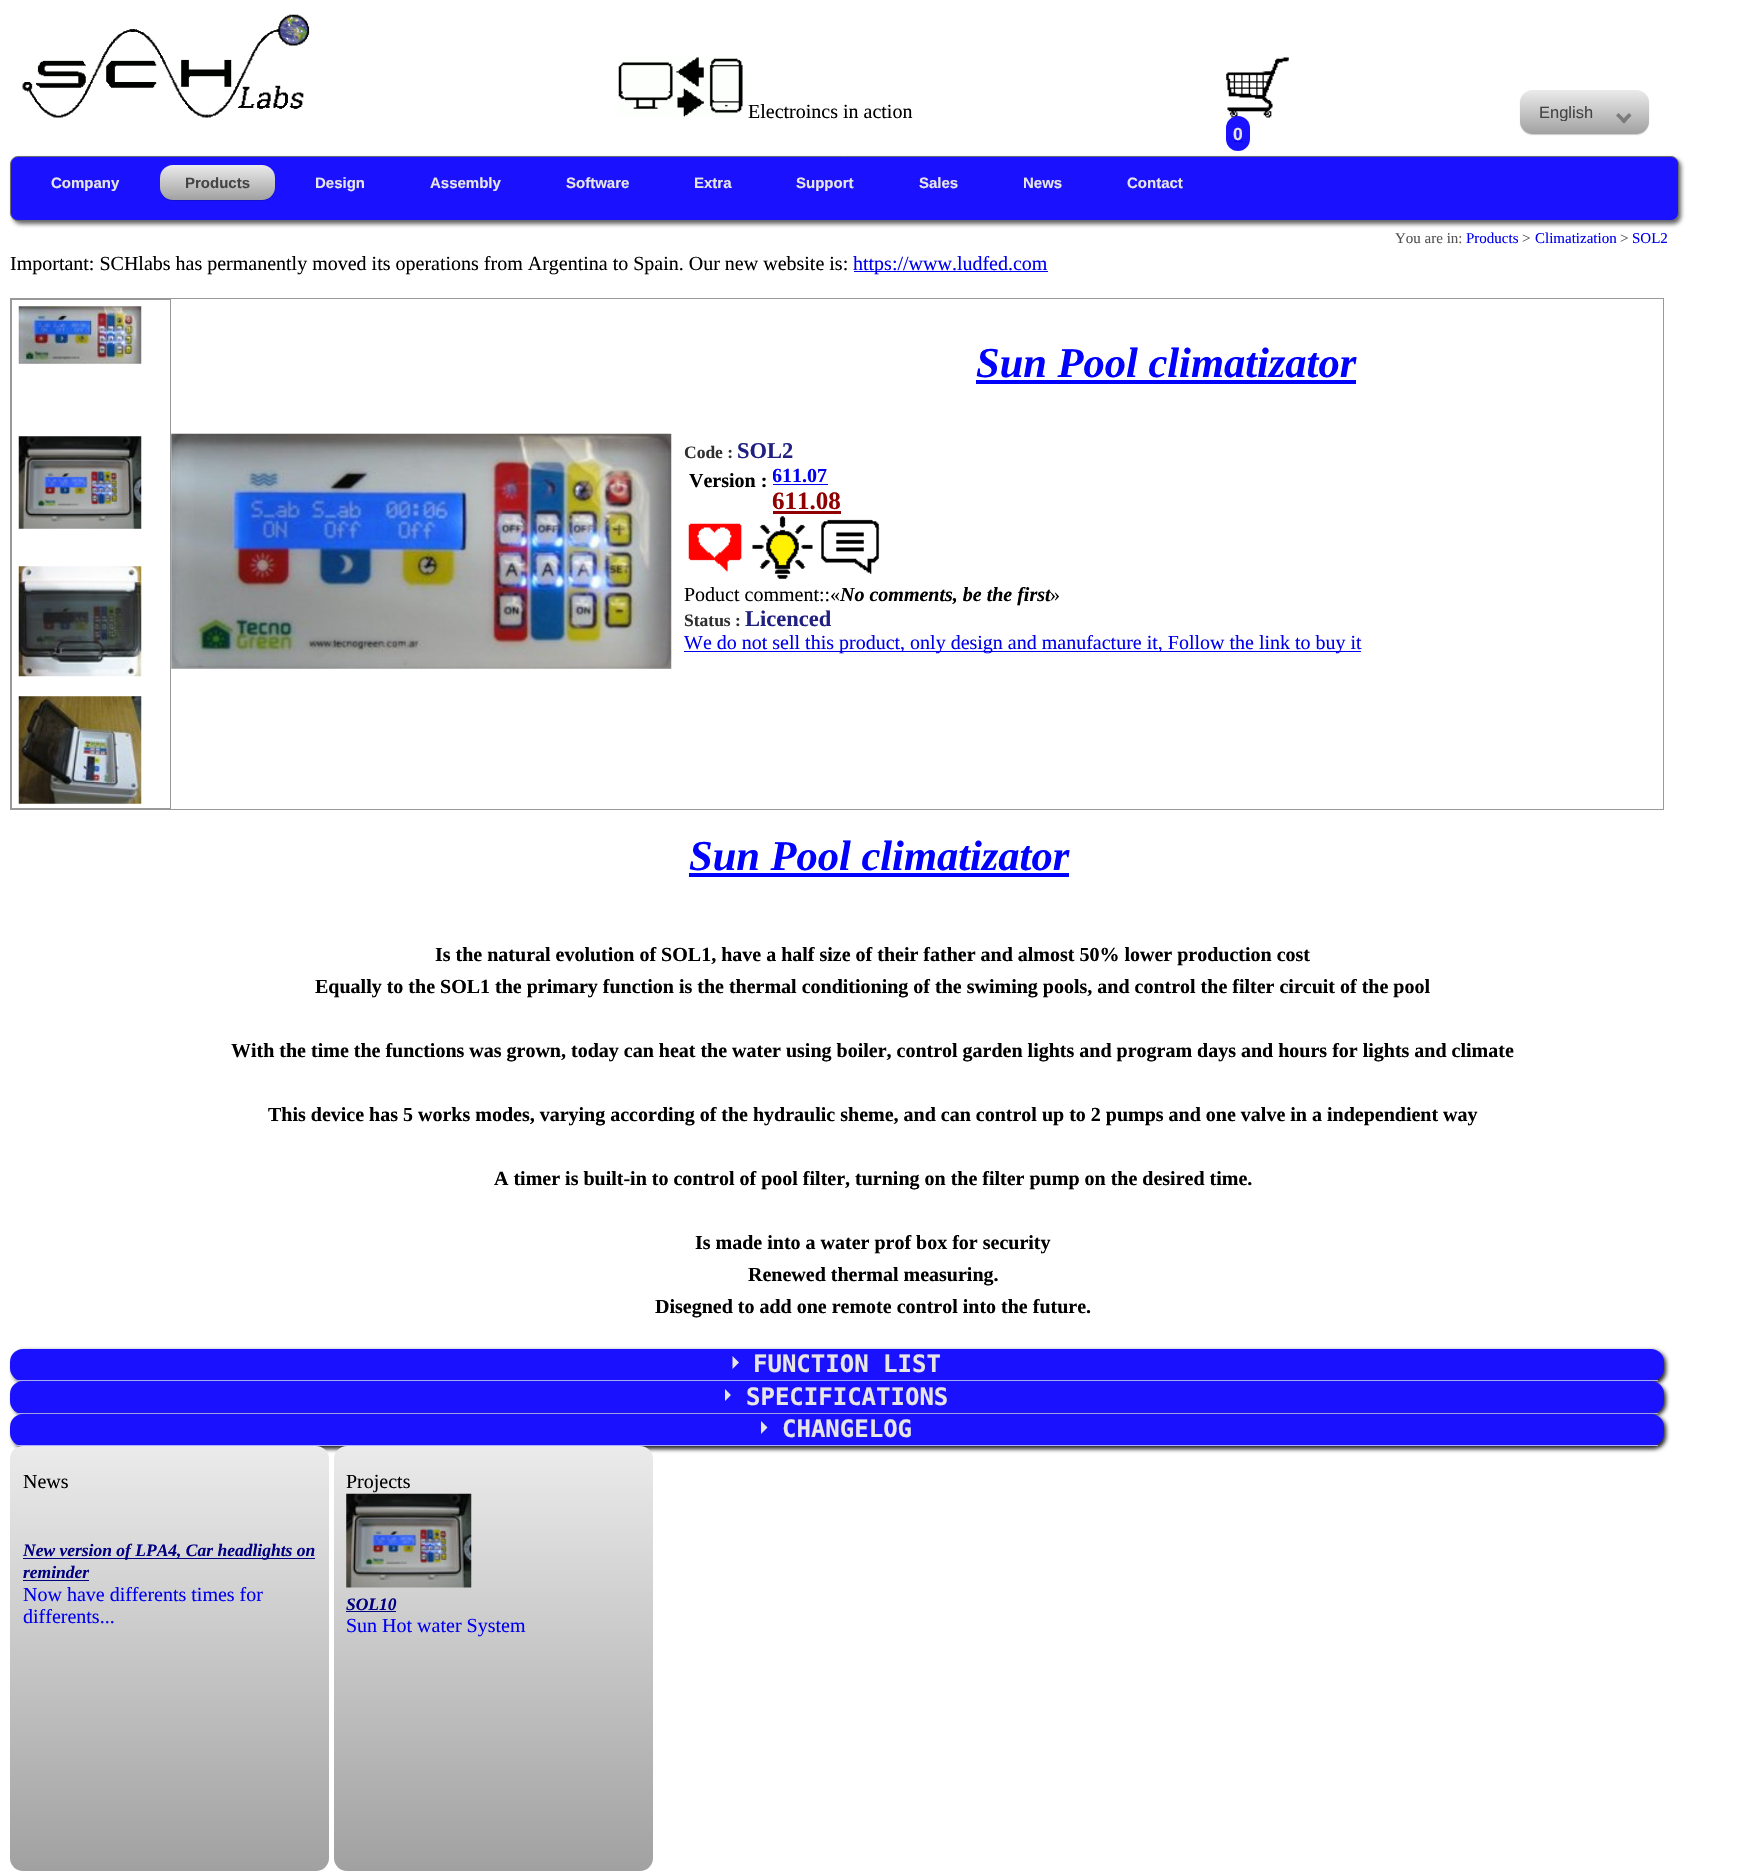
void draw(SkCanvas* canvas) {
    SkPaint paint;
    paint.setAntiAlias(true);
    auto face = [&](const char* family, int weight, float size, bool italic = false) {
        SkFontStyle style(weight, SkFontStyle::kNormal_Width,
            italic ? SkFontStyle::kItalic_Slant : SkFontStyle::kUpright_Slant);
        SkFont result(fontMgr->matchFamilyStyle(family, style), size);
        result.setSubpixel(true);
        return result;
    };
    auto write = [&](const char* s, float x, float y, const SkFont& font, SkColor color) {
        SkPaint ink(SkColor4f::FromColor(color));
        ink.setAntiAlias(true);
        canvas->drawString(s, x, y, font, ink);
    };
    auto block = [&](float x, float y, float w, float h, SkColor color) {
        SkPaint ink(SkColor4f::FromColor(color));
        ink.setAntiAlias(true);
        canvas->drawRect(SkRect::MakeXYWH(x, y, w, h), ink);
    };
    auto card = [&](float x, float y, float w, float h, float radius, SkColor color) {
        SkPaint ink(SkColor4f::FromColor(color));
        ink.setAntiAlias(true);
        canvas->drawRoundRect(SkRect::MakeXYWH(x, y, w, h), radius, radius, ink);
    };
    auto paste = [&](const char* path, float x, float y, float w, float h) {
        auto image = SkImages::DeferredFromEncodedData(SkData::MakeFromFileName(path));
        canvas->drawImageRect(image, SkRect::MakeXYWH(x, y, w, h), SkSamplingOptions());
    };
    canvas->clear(SK_ColorWHITE);
    paste("pic1.png", 22, 14, 288, 104);
    paste("pic2.png", 618, 57, 125, 60);
    auto kFont1 = face("Liberation Serif", 400, 20);
    write("Electroincs in action", 748, 118, kFont1, SK_ColorBLACK);
    paint.setColor(SkColorSetARGB(51, 0, 0, 0));
    paint.setMaskFilter(SkMaskFilter::MakeBlur(kNormal_SkBlurStyle, 0.5f));
    canvas->drawRoundRect(SkRect::MakeXYWH(1520, 91, 129, 44), 13, 13, paint);
    paint.setMaskFilter(nullptr);
    {
        const SkColor colors[] = {SkColorSetRGB(235, 235, 235), SkColorSetRGB(161, 161, 161)};
        const float stops[] = {0, 1};
        const SkPoint ends[] = {{1520, 90}, {1520, 134}};
        paint.setShader(SkGradientShader::MakeLinear(ends, colors, stops, 2, SkTileMode::kClamp));
        paint.setAlpha(255);
    }
    canvas->drawRoundRect(SkRect::MakeXYWH(1520, 90, 129, 44), 13, 13, paint);
    canvas->save();
    canvas->clipRect(SkRect::MakeXYWH(1539, 103, 91, 18));
    auto kFont2 = face("Liberation Sans", 400, 16.5f);
    write("English", 1539, 118, kFont2, SkColorSetRGB(68, 68, 68));
    canvas->restore();
    paint.setShader(nullptr);
    paint.setColor(SkColorSetRGB(123, 123, 123));
    canvas->drawPath(SkPathBuilder().moveTo(1629, 113).lineTo(1631.5f, 115.5f).lineTo(1624, 123.5f).lineTo(1621, 121).close().detach(), paint);
    canvas->drawPath(SkPathBuilder().moveTo(1618.5f, 113).lineTo(1626.5f, 121).lineTo(1624, 123.5f).lineTo(1616, 115.5f).close().detach(), paint);
    paste("pic3.png", 1226, 57, 63, 61);
    card(1226, 116, 24, 35, 12, SkColorSetRGB(26, 18, 255));
    auto kFont3 = face("Liberation Sans", 700, 17.5f);
    write("0", 1233, 140, kFont3, SkColorSetRGB(231, 229, 229));
    block(1234, 141, 9, 1, SkColorSetRGB(0, 0, 238));
    paint.setColor(SkColorSetRGB(102, 102, 102));
    paint.setMaskFilter(SkMaskFilter::MakeBlur(kNormal_SkBlurStyle, 2));
    canvas->drawRoundRect(SkRect::MakeXYWH(13, 159, 1668, 65), 8, 8, paint);
    paint.setMaskFilter(nullptr);
    paint.setColor(SkColorSetRGB(26, 18, 255));
    canvas->drawRoundRect(SkRect::MakeXYWH(10.5f, 156.5f, 1668, 64), 7.5f, 7.5f, paint);
    paint.setStyle(SkPaint::kStroke_Style);
    paint.setStrokeWidth(1);
    paint.setColor(SkColorSetRGB(109, 109, 109));
    canvas->drawRoundRect(SkRect::MakeXYWH(10.5f, 156.5f, 1668, 64), 7.5f, 7.5f, paint);
    auto kFont4 = face("Liberation Sans", 700, 15);
    write("Company", 51, 188, kFont4, SkColorSetRGB(231, 229, 229));
    paint.setStyle(SkPaint::kFill_Style);
    paint.setColor(SkColorSetARGB(51, 0, 0, 0));
    paint.setMaskFilter(SkMaskFilter::MakeBlur(kNormal_SkBlurStyle, 0.5f));
    canvas->drawRoundRect(SkRect::MakeXYWH(160, 166, 115, 35), 13, 13, paint);
    paint.setMaskFilter(nullptr);
    {
        const SkColor colors[] = {SkColorSetRGB(235, 235, 235), SkColorSetRGB(161, 161, 161)};
        const float stops[] = {0, 1};
        const SkPoint ends[] = {{160, 165}, {160, 200}};
        paint.setShader(SkGradientShader::MakeLinear(ends, colors, stops, 2, SkTileMode::kClamp));
        paint.setAlpha(255);
    }
    canvas->drawRoundRect(SkRect::MakeXYWH(160, 165, 115, 35), 13, 13, paint);
    write("Products", 185, 188, kFont4, SkColorSetRGB(68, 68, 68));
    write("Design", 315, 188, kFont4, SkColorSetRGB(231, 229, 229));
    write("Assembly", 430, 188, kFont4, SkColorSetRGB(231, 229, 229));
    write("Software", 566, 188, kFont4, SkColorSetRGB(231, 229, 229));
    write("Extra", 694, 188, kFont4, SkColorSetRGB(231, 229, 229));
    write("Support", 796, 188, kFont4, SkColorSetRGB(231, 229, 229));
    write("Sales", 919, 188, kFont4, SkColorSetRGB(231, 229, 229));
    write("News", 1023, 188, kFont4, SkColorSetRGB(231, 229, 229));
    write("Contact", 1127, 188, kFont4, SkColorSetRGB(231, 229, 229));
    auto kFont5 = face("Liberation Serif", 400, 15);
    write("You are in:", 1395, 243, kFont5, SkColorSetRGB(85, 83, 83));
    write("Products", 1466, 243, kFont5, SkColorSetRGB(0, 0, 238));
    write(">", 1522, 243, kFont5, SkColorSetRGB(85, 83, 83));
    write("Climatization", 1535, 243, kFont5, SkColorSetRGB(0, 0, 238));
    write(">", 1620, 243, kFont5, SkColorSetRGB(85, 83, 83));
    write("SOL2", 1632, 243, kFont5, SkColorSetRGB(0, 0, 238));
    write("Important: SCHlabs has permanently moved its operations from Argentina to Spain. Our new website is:", 10, 270, kFont1, SK_ColorBLACK);
    block(854, 271, 194, 1, SkColorSetRGB(0, 0, 238));
    write("https://www.ludfed.com", 853, 270, kFont1, SkColorSetRGB(0, 0, 238));
    paint.setStyle(SkPaint::kStroke_Style);
    paint.setShader(nullptr);
    paint.setColor(SkColorSetRGB(153, 153, 153));
    canvas->drawRect(SkRect::MakeXYWH(10.5f, 298.5f, 1653, 511), paint);
    canvas->drawRect(SkRect::MakeXYWH(11.5f, 299.5f, 159, 509), paint);
    paste("pic4.png", 18, 306, 124, 58);
    paste("pic5.png", 18, 436, 124, 93);
    paste("pic6.png", 18, 566, 124, 111);
    paste("pic7.png", 18, 696, 124, 108);
    paste("pic8.png", 171, 433, 501, 236);
    auto kFont6 = face("Liberation Serif", 700, 42.5f, true);
    write("Sun Pool climatizator", 976, 377, kFont6, SkColorSetRGB(0, 0, 255));
    block(976, 380, 380, 4, SkColorSetRGB(0, 0, 255));
    auto kFont7 = face("Liberation Serif", 700, 17.5f);
    write("Code :", 684, 458, kFont7, SkColorSetRGB(48, 48, 48));
    auto kFont8 = face("Liberation Serif", 700, 22.5f);
    write("SOL2", 737, 458, kFont8, SkColorSetRGB(32, 32, 128));
    auto kFont9 = face("Liberation Serif", 700, 20);
    write("Version :", 689, 487, kFont9, SK_ColorBLACK);
    canvas->save();
    canvas->clipRect(SkRect::MakeXYWH(773, 465, 68, 51));
    write("611.07", 772, 482, kFont9, SkColorSetRGB(0, 0, 238));
    canvas->restore();
    block(773, 484, 55, 1, SkColorSetRGB(0, 0, 238));
    auto kFont10 = face("Liberation Serif", 700, 25);
    write("611.08", 772, 509, kFont10, SkColorSetRGB(144, 0, 0));
    block(773, 511, 68, 3, SkColorSetRGB(144, 0, 0));
    paste("pic9.png", 688, 523, 54, 49);
    paste("pic10.png", 752, 516, 61, 63);
    paste("pic11.png", 821, 519, 59, 55);
    write("Poduct comment::«", 684, 601, kFont1, SK_ColorBLACK);
    auto kFont11 = face("Liberation Serif", 700, 20, true);
    write("No comments, be the first", 840, 601, kFont11, SK_ColorBLACK);
    write("»", 1050, 601, kFont1, SK_ColorBLACK);
    write("Status :", 684, 626, kFont7, SkColorSetRGB(48, 48, 48));
    write("Licenced", 745, 626, kFont8, SkColorSetRGB(32, 32, 128));
    block(684, 651, 677, 1, SkColorSetRGB(0, 0, 238));
    write("We do not sell this product, only design and manufacture it, Follow the link to buy it", 684, 649, kFont1, SkColorSetRGB(0, 0, 238));
    write("Sun Pool climatizator", 689, 870, kFont6, SkColorSetRGB(0, 0, 255));
    block(689, 873, 380, 4, SkColorSetRGB(0, 0, 255));
    write("Is the natural evolution of SOL1, have a half size of their father and almost 50% lower production cost", 435, 961, kFont9, SK_ColorBLACK);
    write("Equally to the SOL1 the primary function is the thermal conditioning of the swiming pools, and control the filter circuit of the pool", 315, 993, kFont9, SK_ColorBLACK);
    write("With the time the functions was grown, today can heat the water using boiler, control garden lights and program days and hours for lights and climate", 231, 1057, kFont9, SK_ColorBLACK);
    write("This device has 5 works modes, varying according of the hydraulic sheme, and can control up to 2 pumps and one valve in a independient way", 268, 1121, kFont9, SK_ColorBLACK);
    write("A timer is built-in to control of pool filter, turning on the filter pump on the desired time.", 494, 1185, kFont9, SK_ColorBLACK);
    write("Is made into a water prof box for security", 695, 1249, kFont9, SK_ColorBLACK);
    write("Renewed thermal measuring.", 748, 1281, kFont9, SK_ColorBLACK);
    write("Disegned to add one remote control into the future.", 655, 1313, kFont9, SK_ColorBLACK);
    paint.setStyle(SkPaint::kFill_Style);
    paint.setColor(SkColorSetRGB(34, 34, 34));
    paint.setMaskFilter(SkMaskFilter::MakeBlur(kNormal_SkBlurStyle, 2));
    canvas->drawRoundRect(SkRect::MakeXYWH(13, 1351, 1653, 33), 13, 13, paint);
    paint.setMaskFilter(nullptr);
    card(10, 1349, 1654, 32, 13, SkColorSetRGB(26, 18, 255));
    block(16, 1380, 1642, 1, SkColorSetRGB(175, 175, 255));
    paint.setMaskFilter(SkMaskFilter::MakeBlur(kNormal_SkBlurStyle, 2));
    canvas->drawRoundRect(SkRect::MakeXYWH(13, 1384, 1653, 32), 13, 13, paint);
    paint.setMaskFilter(nullptr);
    card(10, 1381, 1654, 33, 13, SkColorSetRGB(26, 18, 255));
    paint.setColor(SkColorSetRGB(231, 229, 229));
    canvas->drawPath(SkPathBuilder().moveTo(732.5f, 1369).lineTo(732.5f, 1356).lineTo(739, 1362.5f).close().moveTo(725, 1401).lineTo(725, 1389).lineTo(731, 1395).close().detach(), paint);
    auto kFont12 = face("DejaVu Sans Mono", 700, 24);
    write("FUNCTION LIST", 753, 1372, kFont12, SkColorSetRGB(231, 229, 229));
    block(16, 1413, 1642, 1, SkColorSetRGB(175, 175, 255));
    write("SPECIFICATIONS", 746, 1405, kFont12, SkColorSetRGB(231, 229, 229));
    paint.setColor(SkColorSetRGB(34, 34, 34));
    paint.setMaskFilter(SkMaskFilter::MakeBlur(kNormal_SkBlurStyle, 2));
    canvas->drawRoundRect(SkRect::MakeXYWH(13, 1416, 1653, 33), 13, 13, paint);
    paint.setMaskFilter(nullptr);
    card(10, 1414, 1654, 32, 13, SkColorSetRGB(26, 18, 255));
    block(16, 1445, 1642, 1, SkColorSetRGB(175, 175, 255));
    paint.setColor(SkColorSetRGB(231, 229, 229));
    canvas->drawPath(SkPathBuilder().moveTo(761, 1434).lineTo(761, 1421).lineTo(767.5f, 1427.5f).close().detach(), paint);
    write("CHANGELOG", 782, 1437, kFont12, SkColorSetRGB(231, 229, 229));
    {
        const SkColor colors[] = {SkColorSetRGB(235, 235, 235), SkColorSetRGB(161, 161, 161)};
        const float stops[] = {0, 1};
        const SkPoint ends[] = {{10, 1446}, {10, 1871}};
        paint.setShader(SkGradientShader::MakeLinear(ends, colors, stops, 2, SkTileMode::kClamp));
        paint.setAlpha(255);
    }
    canvas->drawRoundRect(SkRect::MakeXYWH(10, 1446, 319, 425), 13, 13, paint);
    write("News", 23, 1488, kFont1, SK_ColorBLACK);
    block(23, 1558, 292, 1, SkColorSetRGB(0, 0, 128));
    auto kFont13 = face("Liberation Serif", 700, 17.5f, true);
    write("New version of LPA4, Car headlights on", 23, 1556, kFont13, SkColorSetRGB(0, 0, 128));
    write("reminder", 23, 1578, kFont13, SkColorSetRGB(0, 0, 128));
    block(23, 1580, 66, 1, SkColorSetRGB(0, 0, 128));
    write("Now have differents times for", 23, 1601, kFont1, SkColorSetRGB(0, 0, 238));
    write("differents...", 23, 1623, kFont1, SkColorSetRGB(0, 0, 238));
    {
        const SkColor colors[] = {SkColorSetRGB(235, 235, 235), SkColorSetRGB(161, 161, 161)};
        const float stops[] = {0, 1};
        const SkPoint ends[] = {{334, 1446}, {334, 1871}};
        paint.setShader(SkGradientShader::MakeLinear(ends, colors, stops, 2, SkTileMode::kClamp));
        paint.setAlpha(255);
    }
    canvas->drawRoundRect(SkRect::MakeXYWH(334, 1446, 319, 425), 13, 13, paint);
    write("Projects", 346, 1488, kFont1, SK_ColorBLACK);
    paste("pic12.png", 346, 1493, 126, 95);
    write("SOL10", 346, 1610, kFont13, SkColorSetRGB(0, 0, 128));
    block(346, 1611, 50, 1, SkColorSetRGB(0, 0, 128));
    write("Sun Hot water System", 346, 1632, kFont1, SkColorSetRGB(0, 0, 238));
}
